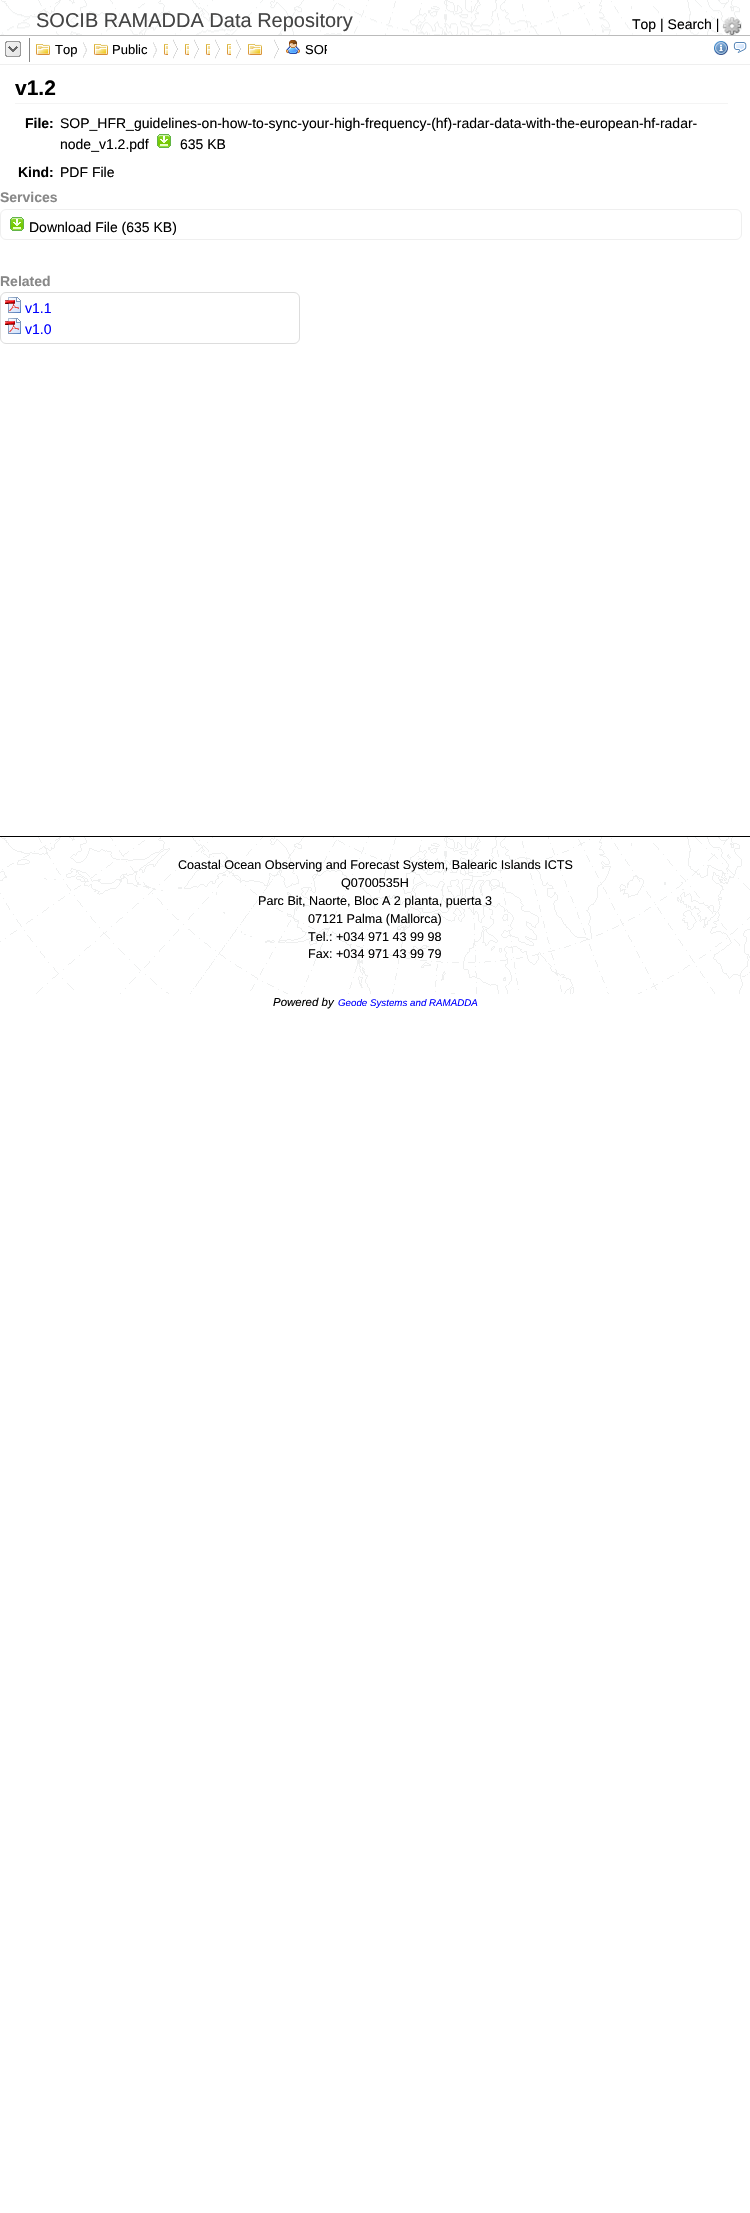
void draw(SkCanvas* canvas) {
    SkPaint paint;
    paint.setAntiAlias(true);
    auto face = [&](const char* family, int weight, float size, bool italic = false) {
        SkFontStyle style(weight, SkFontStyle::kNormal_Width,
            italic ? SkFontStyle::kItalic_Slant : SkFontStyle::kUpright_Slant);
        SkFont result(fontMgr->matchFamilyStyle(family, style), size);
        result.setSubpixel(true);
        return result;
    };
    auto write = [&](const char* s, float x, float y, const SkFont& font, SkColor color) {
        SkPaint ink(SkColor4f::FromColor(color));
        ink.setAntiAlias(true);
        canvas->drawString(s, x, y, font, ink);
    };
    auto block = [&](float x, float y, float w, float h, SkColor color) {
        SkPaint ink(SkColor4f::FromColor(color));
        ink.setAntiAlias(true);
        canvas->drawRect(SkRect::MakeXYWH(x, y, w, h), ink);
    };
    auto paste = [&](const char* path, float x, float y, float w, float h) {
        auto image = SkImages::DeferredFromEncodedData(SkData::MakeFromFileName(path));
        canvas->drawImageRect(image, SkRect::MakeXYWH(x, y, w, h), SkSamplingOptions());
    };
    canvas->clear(SK_ColorWHITE);
    paste("pic1.png", 0, 0, 742, 35);
    block(0, 35, 750, 1, SkColorSetRGB(187, 187, 187));
    auto kFont1 = face("Liberation Sans", 400, 20);
    write("SOCIB RAMADDA Data Repository", 36, 27, kFont1, SkColorSetRGB(68, 68, 68));
    auto kFont2 = face("Liberation Sans", 400, 14);
    write("Top | Search |", 632, 29, kFont2, SK_ColorBLACK);
    paste("pic2.png", 723, 17, 18, 18);
    block(0, 64, 750, 1, SkColorSetRGB(239, 239, 239));
    block(29, 38, 1, 24, SkColorSetRGB(136, 136, 136));
    paste("pic3.png", 5, 41, 16, 16);
    paste("pic4.png", 83, 42, 4, 16);
    paste("pic5.png", 36, 44, 14, 11);
    auto kFont3 = face("Liberation Sans", 400, 13);
    write("Top", 55, 54, kFont3, SK_ColorBLACK);
    paste("pic4.png", 153, 42, 4, 16);
    paste("pic5.png", 94, 44, 14, 11);
    write("Public", 112, 54, kFont3, SK_ColorBLACK);
    paste("pic6.png", 164, 44, 4, 11);
    paste("pic7.png", 173, 39, 5, 20);
    paste("pic6.png", 185, 44, 4, 11);
    paste("pic7.png", 194, 39, 5, 20);
    paste("pic6.png", 206, 44, 4, 11);
    paste("pic7.png", 215, 39, 5, 20);
    paste("pic6.png", 227, 44, 4, 11);
    paste("pic7.png", 236, 39, 5, 20);
    paste("pic5.png", 248, 44, 14, 11);
    paste("pic7.png", 274, 39, 5, 20);
    paste("pic8.png", 286, 40, 14, 14);
    canvas->save();
    canvas->clipRect(SkRect::MakeXYWH(285, 39, 42, 21));
    write("SOP", 305, 54, kFont3, SK_ColorBLACK);
    canvas->restore();
    paste("pic9.png", 714, 41, 14, 14);
    paste("pic10.png", 733, 42, 14, 11);
    block(15, 103, 713, 1, SkColorSetRGB(244, 244, 244));
    auto kFont4 = face("Liberation Sans", 700, 21);
    write("v1.2", 15, 95, kFont4, SK_ColorBLACK);
    auto kFont5 = face("Liberation Sans", 700, 14);
    write("File:", 25, 128, kFont5, SK_ColorBLACK);
    write("SOP_HFR_guidelines-on-how-to-sync-your-high-frequency-(hf)-radar-data-with-the-european-hf-radar-", 60, 128, kFont2, SK_ColorBLACK);
    write("node_v1.2.pdf", 60, 149, kFont2, SK_ColorBLACK);
    paste("pic11.png", 157, 134, 14, 14);
    write("635 KB", 180, 149, kFont2, SK_ColorBLACK);
    write("Kind:", 18, 177, kFont5, SK_ColorBLACK);
    write("PDF File", 60, 177, kFont2, SK_ColorBLACK);
    write("Services", 0, 202, kFont5, SkColorSetRGB(136, 136, 136));
    paint.setStyle(SkPaint::kStroke_Style);
    paint.setStrokeWidth(1);
    paint.setColor(SkColorSetRGB(239, 239, 239));
    canvas->drawRoundRect(SkRect::MakeXYWH(0.5f, 209.5f, 741, 30), 5.5f, 5.5f, paint);
    paste("pic11.png", 10, 217, 14, 14);
    write("Download File (635 KB)", 29, 232, kFont2, SK_ColorBLACK);
    write("Related", 0, 286, kFont5, SkColorSetRGB(136, 136, 136));
    paint.setColor(SkColorSetRGB(221, 221, 221));
    canvas->drawRoundRect(SkRect::MakeXYWH(0.5f, 292.5f, 299, 51), 5.5f, 5.5f, paint);
    paste("pic12.png", 5, 297, 16, 16);
    write("v1.1", 25, 313, kFont2, SkColorSetRGB(0, 0, 255));
    paste("pic12.png", 5, 318, 16, 16);
    write("v1.0", 25, 334, kFont2, SkColorSetRGB(0, 0, 255));
    paste("pic13.png", 0, 837, 750, 157);
    block(0, 836, 750, 1, SK_ColorBLACK);
    auto kFont6 = face("Liberation Sans", 400, 12.6f);
    write("Coastal Ocean Observing and Forecast System, Balearic Islands ICTS", 178, 869, kFont6, SK_ColorBLACK);
    write("Q0700535H", 341, 887, kFont6, SK_ColorBLACK);
    write("Parc Bit, Naorte, Bloc A 2 planta, puerta 3", 258, 905, kFont6, SK_ColorBLACK);
    write("07121 Palma (Mallorca)", 308, 923, kFont6, SK_ColorBLACK);
    write("Tel.: +034 971 43 99 98", 308, 941, kFont6, SK_ColorBLACK);
    write("Fax: +034 971 43 99 79", 308, 958, kFont6, SK_ColorBLACK);
    auto kFont7 = face("Liberation Sans", 400, 11.5f, true);
    write("Powered by", 273, 1006, kFont7, SK_ColorBLACK);
    auto kFont8 = face("Liberation Sans", 400, 9.75f, true);
    write("Geode Systems and RAMADDA", 338, 1006, kFont8, SkColorSetRGB(0, 0, 255));
}
